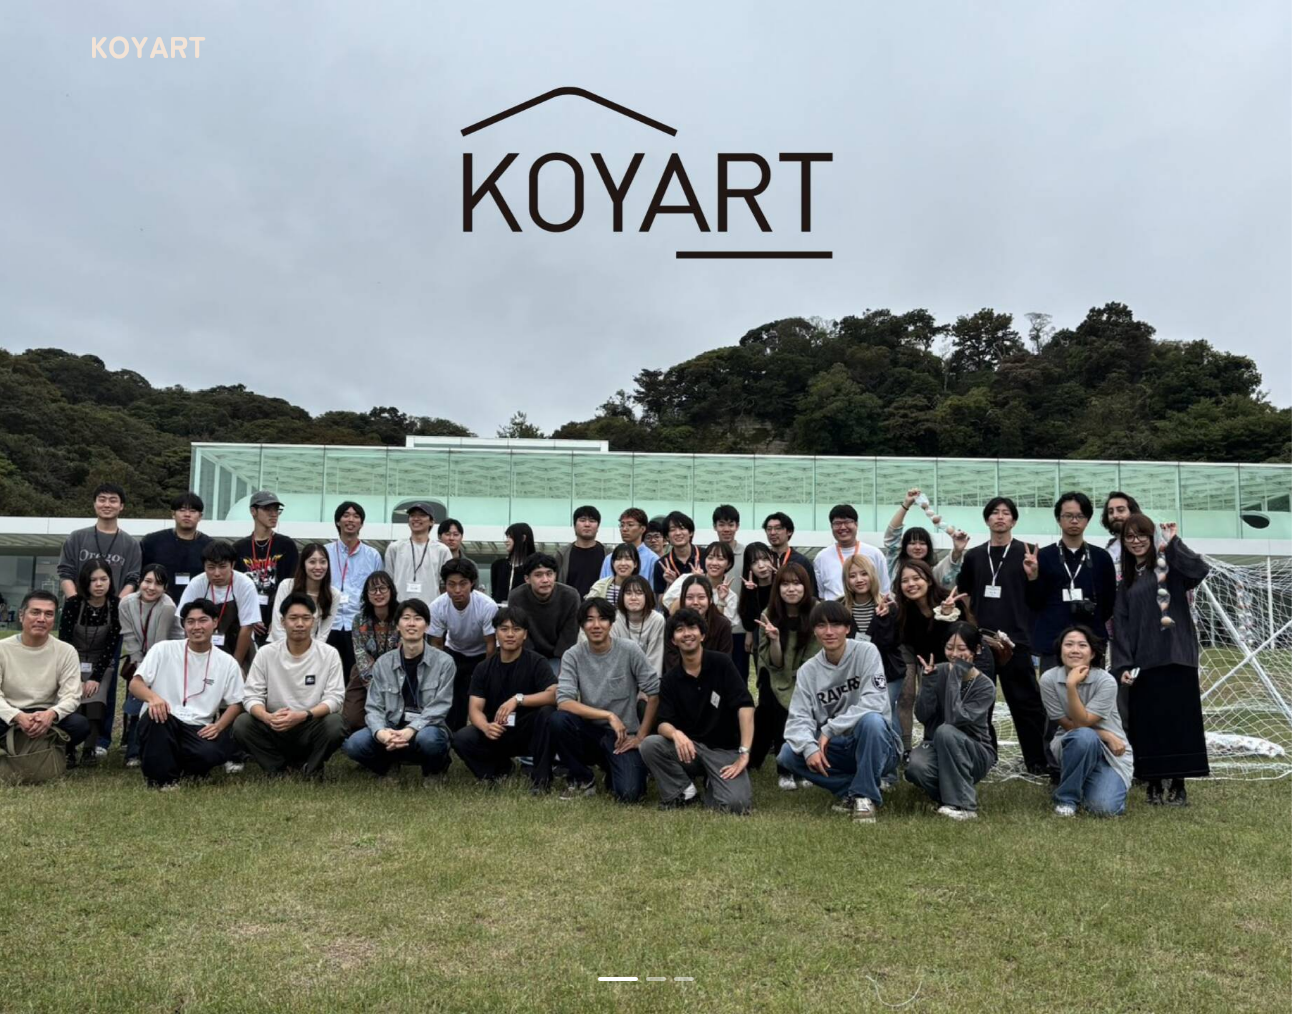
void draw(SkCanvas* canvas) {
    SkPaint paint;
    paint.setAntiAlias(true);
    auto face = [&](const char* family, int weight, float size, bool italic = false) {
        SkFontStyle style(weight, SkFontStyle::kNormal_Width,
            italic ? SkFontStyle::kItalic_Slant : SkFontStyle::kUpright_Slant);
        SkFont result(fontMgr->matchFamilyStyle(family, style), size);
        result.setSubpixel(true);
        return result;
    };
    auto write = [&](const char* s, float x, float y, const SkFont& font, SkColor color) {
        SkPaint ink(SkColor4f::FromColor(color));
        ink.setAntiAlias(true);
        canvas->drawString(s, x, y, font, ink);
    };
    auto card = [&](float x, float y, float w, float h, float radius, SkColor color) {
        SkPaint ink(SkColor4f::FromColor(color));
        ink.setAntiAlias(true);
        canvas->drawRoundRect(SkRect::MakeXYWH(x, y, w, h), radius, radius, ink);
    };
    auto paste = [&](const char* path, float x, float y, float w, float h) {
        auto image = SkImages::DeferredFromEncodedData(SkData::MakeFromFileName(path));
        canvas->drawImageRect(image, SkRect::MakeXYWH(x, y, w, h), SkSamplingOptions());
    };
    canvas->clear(SK_ColorWHITE);
    paste("pic1.png", 0, 0, 1292, 1014);
    card(598, 977, 40, 4, 2, SK_ColorWHITE);
    card(646, 977, 20, 4, 2, SkColorSetARGB(128, 255, 255, 255));
    card(674, 977, 20, 4, 2, SkColorSetARGB(128, 255, 255, 255));
    auto kFont1 = face("Zen Maru Gothic", 900, 30);
    write("KOYART", 90, 58, kFont1, SkColorSetRGB(242, 227, 214));
}
